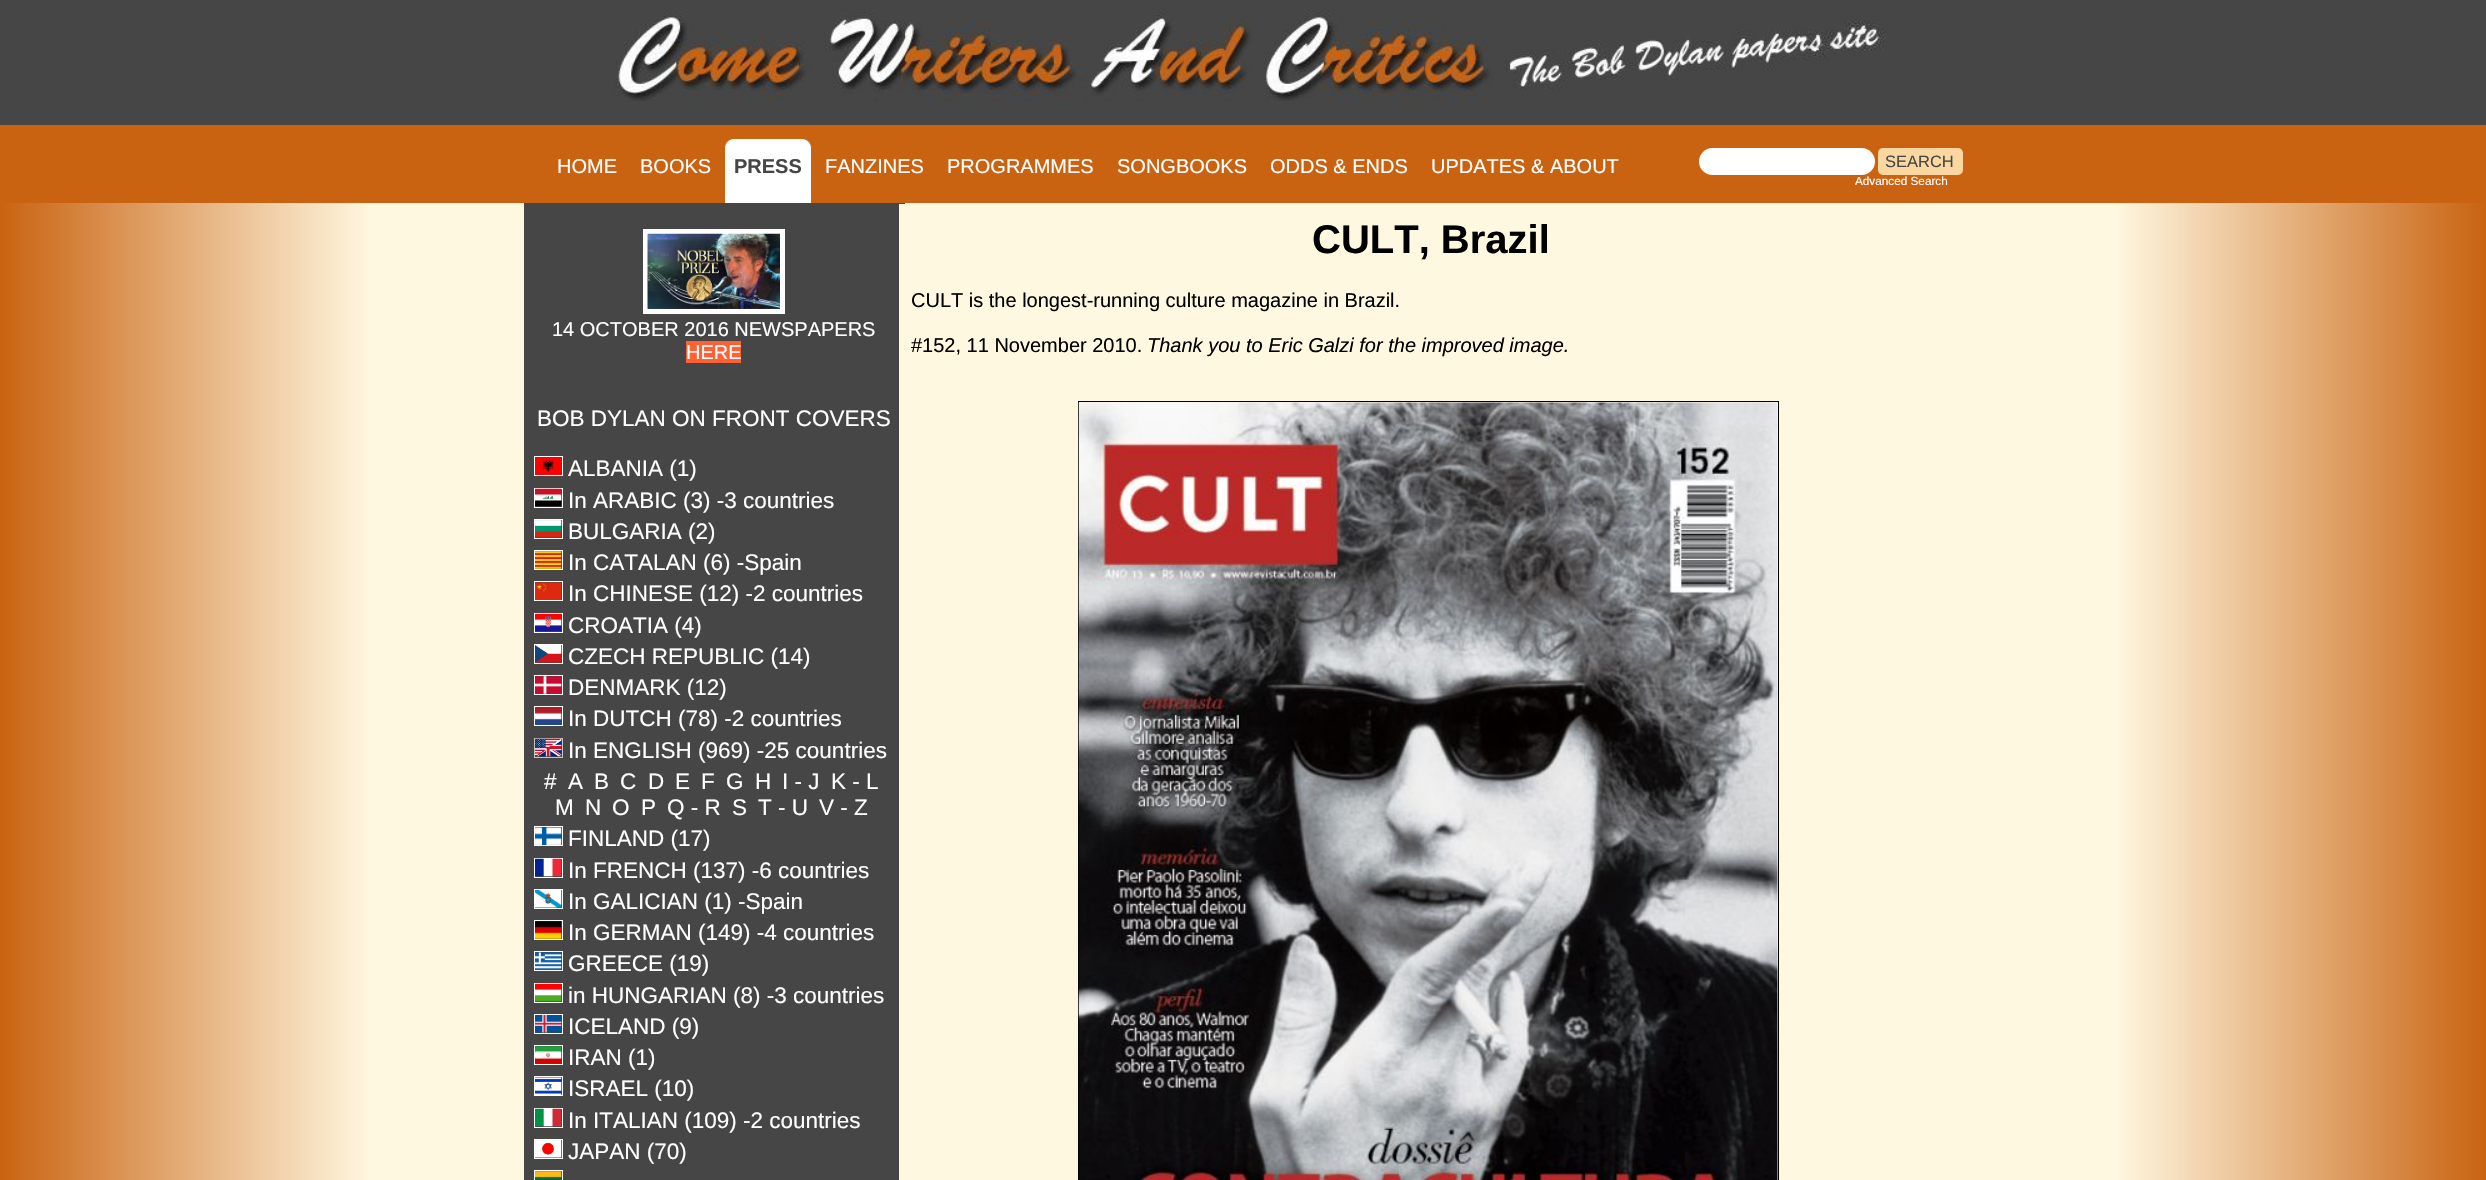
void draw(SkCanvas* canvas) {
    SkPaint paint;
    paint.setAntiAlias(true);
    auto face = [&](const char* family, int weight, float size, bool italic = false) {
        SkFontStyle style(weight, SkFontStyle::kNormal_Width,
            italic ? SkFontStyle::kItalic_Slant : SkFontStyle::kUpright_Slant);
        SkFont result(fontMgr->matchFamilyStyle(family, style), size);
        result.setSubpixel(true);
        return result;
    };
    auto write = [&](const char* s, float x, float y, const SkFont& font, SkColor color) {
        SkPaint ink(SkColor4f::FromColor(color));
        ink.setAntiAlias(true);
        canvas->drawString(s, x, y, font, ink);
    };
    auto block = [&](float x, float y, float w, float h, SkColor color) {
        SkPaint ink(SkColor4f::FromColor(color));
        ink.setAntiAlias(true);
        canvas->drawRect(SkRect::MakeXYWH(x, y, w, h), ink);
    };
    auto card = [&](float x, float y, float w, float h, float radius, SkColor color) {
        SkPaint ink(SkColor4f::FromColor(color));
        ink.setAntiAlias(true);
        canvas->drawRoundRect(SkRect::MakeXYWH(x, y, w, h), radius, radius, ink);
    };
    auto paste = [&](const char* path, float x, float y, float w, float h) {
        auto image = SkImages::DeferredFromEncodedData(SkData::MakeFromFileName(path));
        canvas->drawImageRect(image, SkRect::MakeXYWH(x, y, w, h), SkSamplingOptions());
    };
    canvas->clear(SK_ColorWHITE);
    {
        const SkColor colors[] = {SkColorSetRGB(201, 99, 17), SkColorSetRGB(255, 248, 225), SkColorSetRGB(255, 248, 225), SkColorSetRGB(201, 99, 17)};
        const float stops[] = {0, 0.15f, 0.85f, 1};
        const SkPoint ends[] = {{0, 590}, {2486, 590}};
        paint.setShader(SkGradientShader::MakeLinear(ends, colors, stops, 4, SkTileMode::kClamp));
        paint.setAlpha(255);
    }
    canvas->drawRect(SkRect::MakeXYWH(0, 203, 2486, 977), paint);
    block(0, 0, 2486, 125, SkColorSetRGB(70, 70, 70));
    paste("pic1.png", 614, 10, 1272, 91);
    block(0, 125, 2486, 78, SkColorSetRGB(201, 99, 17));
    auto kFont1 = face("Liberation Sans", 400, 20);
    write("HOME", 557, 173, kFont1, SK_ColorWHITE);
    write("BOOKS", 640, 173, kFont1, SK_ColorWHITE);
    paint.setShader(nullptr);
    paint.setColor(SK_ColorWHITE);
    canvas->drawPath(SkPathBuilder().moveTo(734, 139).lineTo(802, 139).cubicTo(807, 139, 811, 143, 811, 148).lineTo(811, 203).lineTo(725, 203).lineTo(725, 148).cubicTo(725, 143, 729, 139, 734, 139).close().detach(), paint);
    auto kFont2 = face("Liberation Sans", 700, 20);
    write("PRESS", 734, 173, kFont2, SkColorSetRGB(70, 70, 70));
    write("FANZINES", 825, 173, kFont1, SK_ColorWHITE);
    write("PROGRAMMES", 947, 173, kFont1, SK_ColorWHITE);
    write("SONGBOOKS", 1117, 173, kFont1, SK_ColorWHITE);
    write("ODDS & ENDS", 1270, 173, kFont1, SK_ColorWHITE);
    write("UPDATES & ABOUT", 1431, 173, kFont1, SK_ColorWHITE);
    card(1699, 148, 176, 27, 13.5f, SK_ColorWHITE);
    card(1878, 148, 85, 27, 5, SkColorSetRGB(250, 215, 160));
    auto kFont3 = face("Liberation Sans", 400, 16.5f);
    write("SEARCH", 1885, 167, kFont3, SkColorSetRGB(70, 70, 70));
    auto kFont4 = face("Liberation Sans", 400, 11.75f);
    write("Advanced Search", 1855, 185, kFont4, SK_ColorWHITE);
    block(524, 203, 381, 977, SkColorSetRGB(70, 70, 70));
    block(899, 204, 6, 976, SkColorSetRGB(255, 248, 225));
    auto kFont5 = face("Liberation Sans", 700, 40);
    write("CULT, Brazil", 1312, 253, kFont5, SK_ColorBLACK);
    write("CULT is the longest-running culture magazine in Brazil.", 911, 307, kFont1, SK_ColorBLACK);
    write("#152, 11 November 2010.", 911, 352, kFont1, SK_ColorBLACK);
    auto kFont6 = face("Liberation Sans", 400, 20, true);
    write("Thank you to Eric Galzi for the improved image.", 1147, 352, kFont6, SK_ColorBLACK);
    paint.setStyle(SkPaint::kStroke_Style);
    paint.setStrokeWidth(1);
    paint.setColor(SK_ColorBLACK);
    canvas->drawRect(SkRect::MakeXYWH(1078.5f, 401.5f, 700, 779), paint);
    paste("pic2.png", 1078, 402, 700, 778);
    paint.setStrokeWidth(5);
    paint.setColor(SK_ColorWHITE);
    canvas->drawRect(SkRect::MakeXYWH(645.5f, 231.5f, 137, 80), paint);
    paste("pic3.png", 647, 233, 133, 76);
    write("14 OCTOBER 2016 NEWSPAPERS", 552, 336, kFont1, SK_ColorWHITE);
    block(686, 341, 55, 22, SkColorSetRGB(255, 97, 51));
    write("HERE", 686, 359, kFont1, SK_ColorWHITE);
    auto kFont7 = face("Liberation Sans", 400, 22.5f);
    write("BOB DYLAN ON FRONT COVERS", 537, 426, kFont7, SK_ColorWHITE);
    paint.setStrokeWidth(1);
    canvas->drawRect(SkRect::MakeXYWH(534.5f, 456.5f, 28, 19), paint);
    paste("pic4.png", 535, 457, 27, 18);
    write("ALBANIA (1)", 568, 476, kFont7, SK_ColorWHITE);
    canvas->drawRect(SkRect::MakeXYWH(534.5f, 488.5f, 28, 19), paint);
    paste("pic5.png", 535, 488, 27, 19);
    write("In ARABIC (3) -3 countries", 568, 508, kFont7, SK_ColorWHITE);
    canvas->drawRect(SkRect::MakeXYWH(534.5f, 519.5f, 28, 19), paint);
    paste("pic6.png", 535, 520, 27, 18);
    write("BULGARIA (2)", 568, 539, kFont7, SK_ColorWHITE);
    canvas->drawRect(SkRect::MakeXYWH(534.5f, 550.5f, 28, 19), paint);
    paste("pic7.png", 535, 551, 27, 18);
    write("In CATALAN (6) -Spain", 568, 570, kFont7, SK_ColorWHITE);
    canvas->drawRect(SkRect::MakeXYWH(534.5f, 581.5f, 28, 19), paint);
    paste("pic8.png", 535, 582, 27, 18);
    write("In CHINESE (12) -2 countries", 568, 601, kFont7, SK_ColorWHITE);
    canvas->drawRect(SkRect::MakeXYWH(534.5f, 613.5f, 28, 19), paint);
    paste("pic9.png", 535, 613, 27, 19);
    write("CROATIA (4)", 568, 633, kFont7, SK_ColorWHITE);
    canvas->drawRect(SkRect::MakeXYWH(534.5f, 644.5f, 28, 19), paint);
    paste("pic10.png", 535, 645, 27, 18);
    write("CZECH REPUBLIC (14)", 568, 664, kFont7, SK_ColorWHITE);
    canvas->drawRect(SkRect::MakeXYWH(534.5f, 675.5f, 28, 19), paint);
    paste("pic11.png", 535, 676, 27, 18);
    write("DENMARK (12)", 568, 695, kFont7, SK_ColorWHITE);
    canvas->drawRect(SkRect::MakeXYWH(534.5f, 706.5f, 28, 19), paint);
    paste("pic12.png", 535, 707, 27, 18);
    write("In DUTCH (78) -2 countries", 568, 726, kFont7, SK_ColorWHITE);
    paint.setColor(SkColorSetRGB(195, 196, 188));
    canvas->drawRect(SkRect::MakeXYWH(534.5f, 738.5f, 28, 19), paint);
    paste("pic13.png", 535, 738, 27, 19);
    write("In ENGLISH (969) -25 countries", 568, 758, kFont7, SK_ColorWHITE);
    write("#", 544, 789, kFont7, SK_ColorWHITE);
    write("A", 568, 789, kFont7, SK_ColorWHITE);
    write("B", 594, 789, kFont7, SK_ColorWHITE);
    write("C", 620, 789, kFont7, SK_ColorWHITE);
    write("D", 648, 789, kFont7, SK_ColorWHITE);
    write("E", 675, 789, kFont7, SK_ColorWHITE);
    write("F", 701, 789, kFont7, SK_ColorWHITE);
    write("G", 726, 789, kFont7, SK_ColorWHITE);
    write("H", 755, 789, kFont7, SK_ColorWHITE);
    write("I - J", 782, 789, kFont7, SK_ColorWHITE);
    write("K - L", 831, 789, kFont7, SK_ColorWHITE);
    write("M", 555, 815, kFont7, SK_ColorWHITE);
    write("N", 585, 815, kFont7, SK_ColorWHITE);
    write("O", 612, 815, kFont7, SK_ColorWHITE);
    write("P", 641, 815, kFont7, SK_ColorWHITE);
    write("Q - R", 667, 815, kFont7, SK_ColorWHITE);
    write("S", 732, 815, kFont7, SK_ColorWHITE);
    write("T - U", 758, 815, kFont7, SK_ColorWHITE);
    write("V - Z", 819, 815, kFont7, SK_ColorWHITE);
    paint.setColor(SK_ColorWHITE);
    canvas->drawRect(SkRect::MakeXYWH(534.5f, 826.5f, 28, 19), paint);
    paste("pic14.png", 535, 827, 27, 18);
    write("FINLAND (17)", 568, 846, kFont7, SK_ColorWHITE);
    canvas->drawRect(SkRect::MakeXYWH(534.5f, 858.5f, 28, 19), paint);
    paste("pic15.png", 535, 858, 27, 19);
    write("In FRENCH (137) -6 countries", 568, 878, kFont7, SK_ColorWHITE);
    canvas->drawRect(SkRect::MakeXYWH(534.5f, 889.5f, 28, 19), paint);
    paste("pic16.png", 535, 890, 27, 18);
    write("In GALICIAN (1) -Spain", 568, 909, kFont7, SK_ColorWHITE);
    canvas->drawRect(SkRect::MakeXYWH(534.5f, 920.5f, 28, 19), paint);
    paste("pic17.png", 535, 921, 27, 18);
    write("In GERMAN (149) -4 countries", 568, 940, kFont7, SK_ColorWHITE);
    canvas->drawRect(SkRect::MakeXYWH(534.5f, 951.5f, 28, 19), paint);
    paste("pic18.png", 535, 952, 27, 18);
    write("GREECE (19)", 568, 971, kFont7, SK_ColorWHITE);
    canvas->drawRect(SkRect::MakeXYWH(534.5f, 983.5f, 28, 19), paint);
    paste("pic19.png", 535, 983, 27, 19);
    write("in HUNGARIAN (8) -3 countries", 568, 1003, kFont7, SK_ColorWHITE);
    canvas->drawRect(SkRect::MakeXYWH(534.5f, 1014.5f, 28, 19), paint);
    paste("pic20.png", 535, 1015, 27, 18);
    write("ICELAND (9)", 568, 1034, kFont7, SK_ColorWHITE);
    canvas->drawRect(SkRect::MakeXYWH(534.5f, 1045.5f, 28, 19), paint);
    paste("pic21.png", 535, 1046, 27, 18);
    write("IRAN (1)", 568, 1065, kFont7, SK_ColorWHITE);
    canvas->drawRect(SkRect::MakeXYWH(534.5f, 1076.5f, 28, 19), paint);
    paste("pic22.png", 535, 1077, 27, 18);
    write("ISRAEL (10)", 568, 1096, kFont7, SK_ColorWHITE);
    canvas->drawRect(SkRect::MakeXYWH(534.5f, 1108.5f, 28, 19), paint);
    paste("pic23.png", 535, 1108, 27, 19);
    write("In ITALIAN (109) -2 countries", 568, 1128, kFont7, SK_ColorWHITE);
    canvas->drawRect(SkRect::MakeXYWH(534.5f, 1139.5f, 28, 19), paint);
    paste("pic24.png", 535, 1140, 27, 18);
    write("JAPAN (70)", 568, 1159, kFont7, SK_ColorWHITE);
    canvas->drawRect(SkRect::MakeXYWH(534.5f, 1170.5f, 28, 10), paint);
    paste("pic25.png", 535, 1171, 27, 9);
}
